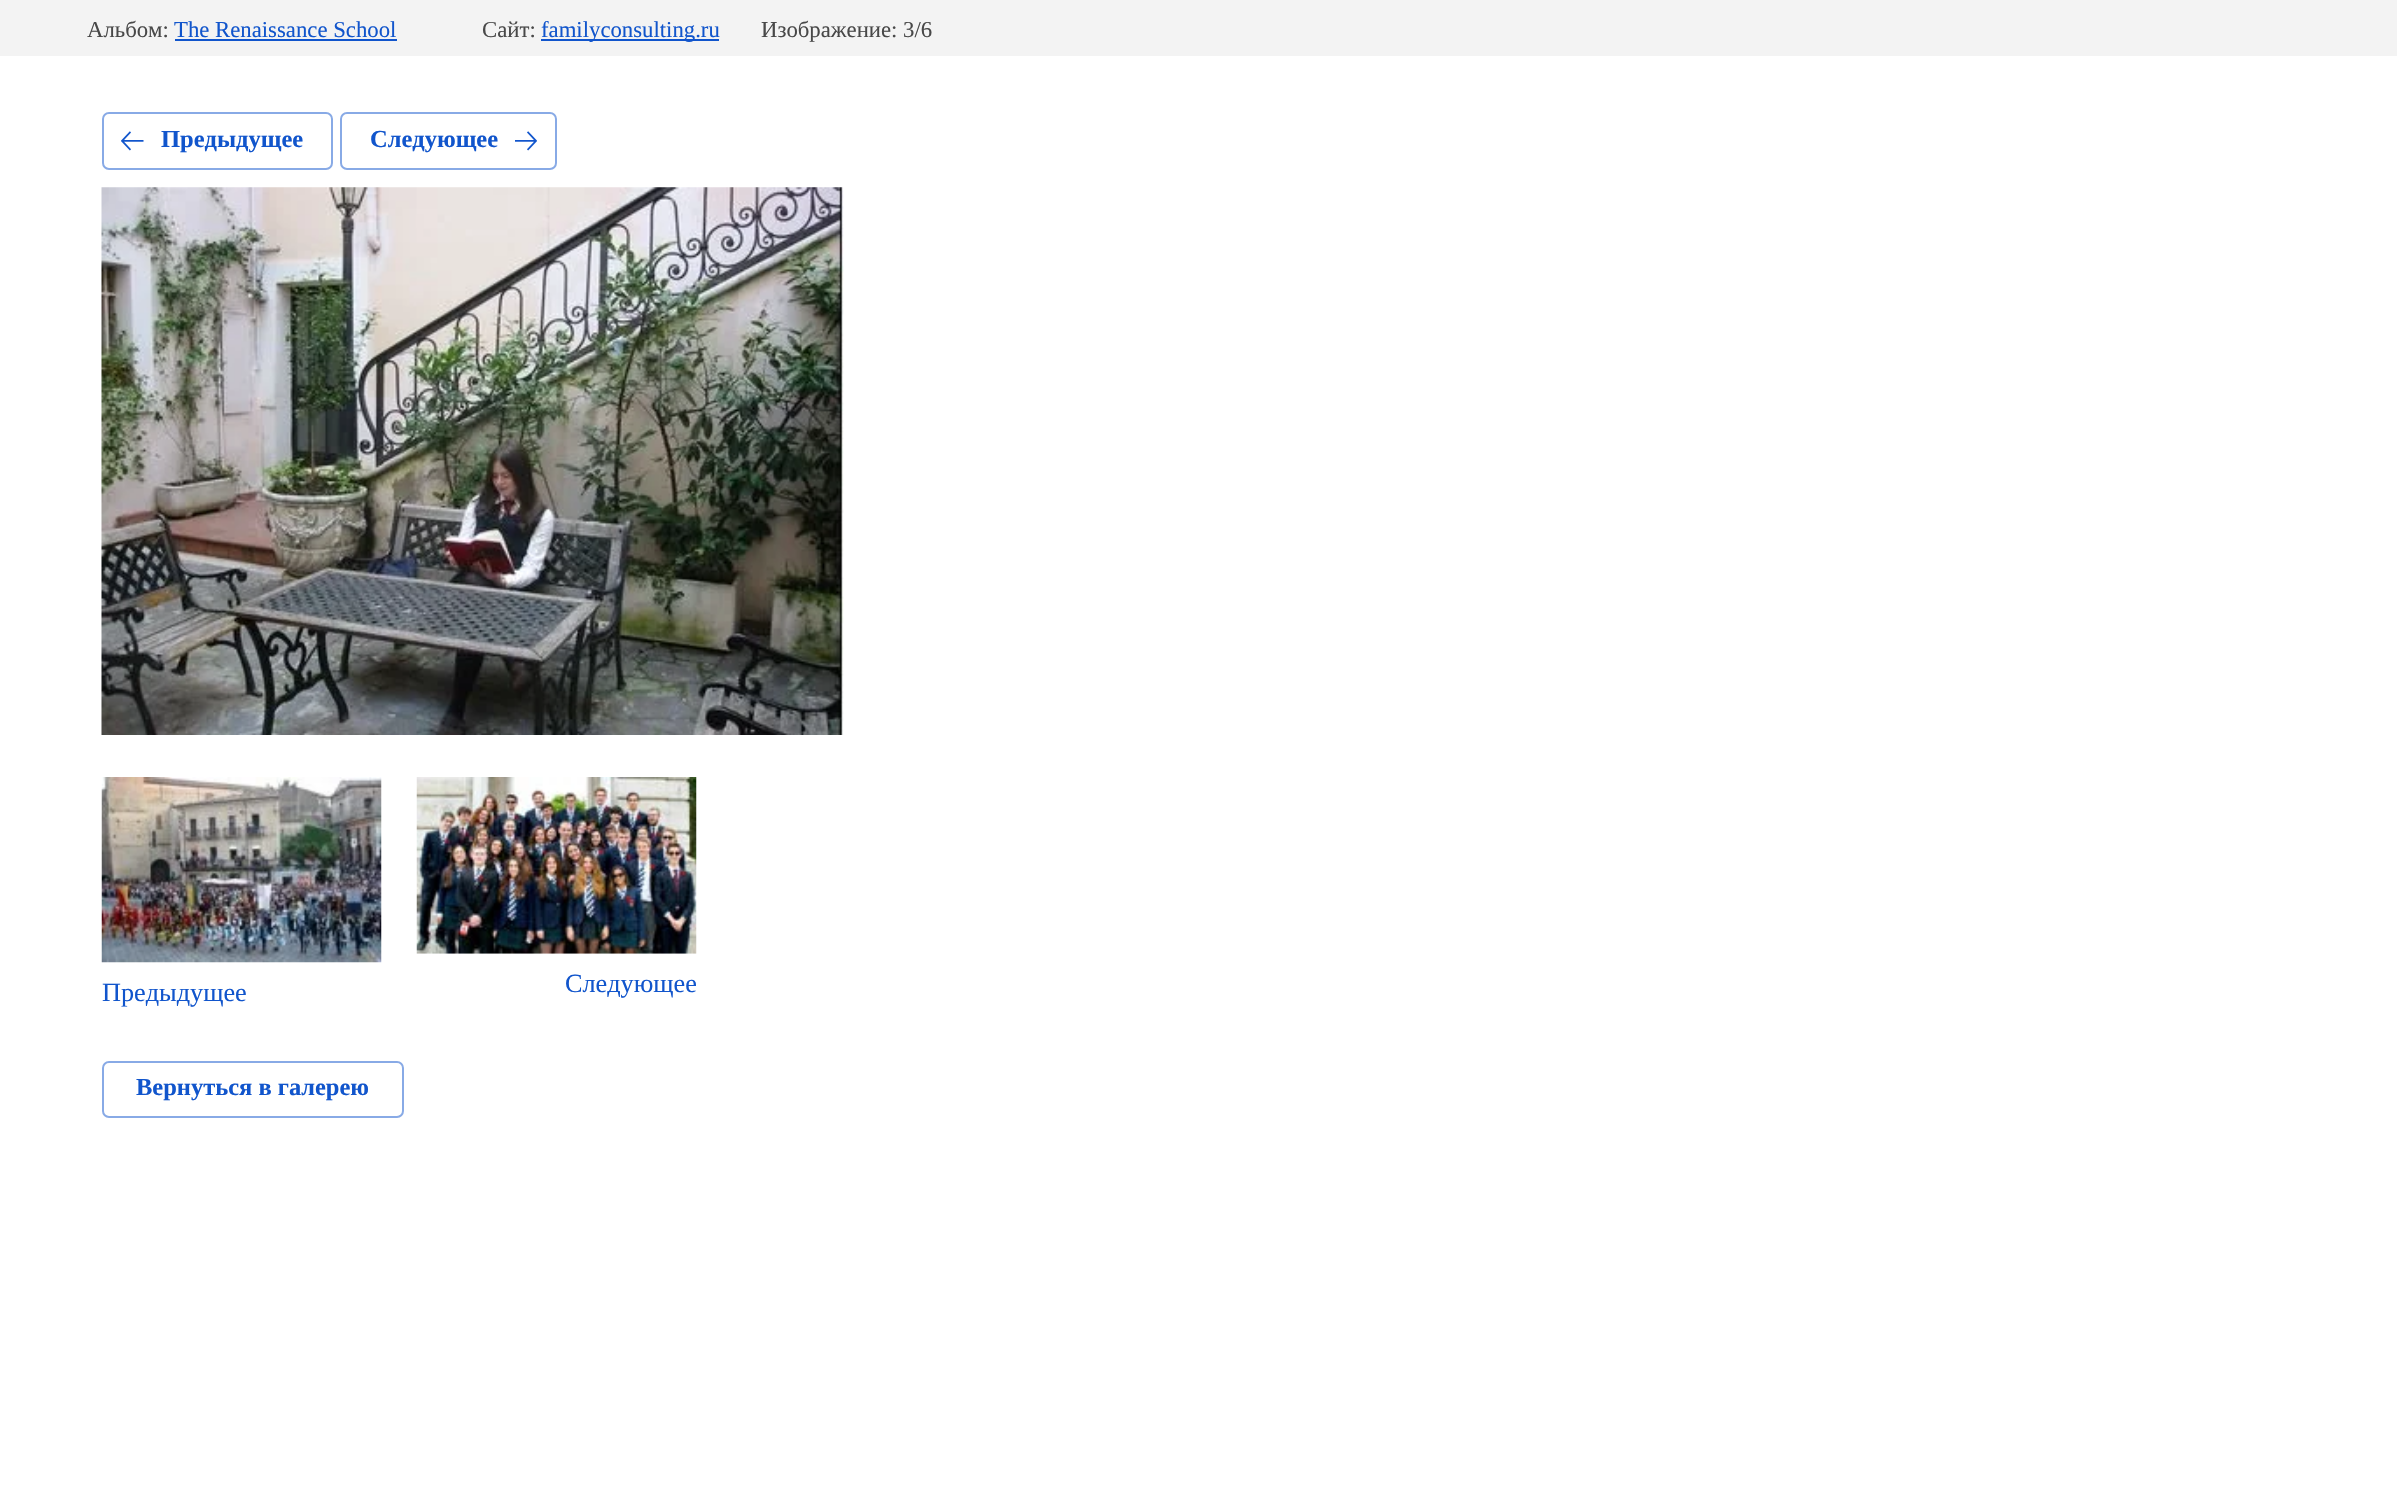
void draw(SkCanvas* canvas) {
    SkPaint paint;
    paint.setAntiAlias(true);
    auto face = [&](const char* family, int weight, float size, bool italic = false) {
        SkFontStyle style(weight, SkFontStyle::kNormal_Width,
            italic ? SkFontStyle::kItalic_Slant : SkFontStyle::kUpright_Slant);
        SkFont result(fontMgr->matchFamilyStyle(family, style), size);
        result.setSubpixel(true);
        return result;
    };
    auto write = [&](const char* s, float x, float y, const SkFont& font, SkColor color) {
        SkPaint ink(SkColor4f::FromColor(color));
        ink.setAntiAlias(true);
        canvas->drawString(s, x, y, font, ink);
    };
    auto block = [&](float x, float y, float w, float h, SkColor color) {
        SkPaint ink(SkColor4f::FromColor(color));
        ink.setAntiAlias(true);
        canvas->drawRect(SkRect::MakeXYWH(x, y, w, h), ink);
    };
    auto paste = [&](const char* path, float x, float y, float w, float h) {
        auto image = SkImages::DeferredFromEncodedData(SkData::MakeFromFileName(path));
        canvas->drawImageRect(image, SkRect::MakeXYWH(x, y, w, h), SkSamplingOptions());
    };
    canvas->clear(SK_ColorWHITE);
    block(0, 0, 2397, 56, SkColorSetRGB(243, 243, 243));
    auto kFont1 = face("Liberation Serif", 400, 22.75f);
    write("Альбом:", 87, 37, kFont1, SkColorSetRGB(72, 72, 72));
    write("The Renaissance School", 174, 37, kFont1, SkColorSetRGB(17, 85, 204));
    block(175, 39, 222, 2, SkColorSetRGB(17, 85, 204));
    write("Сайт:", 482, 37, kFont1, SkColorSetRGB(72, 72, 72));
    block(541, 39, 178, 2, SkColorSetRGB(17, 85, 204));
    write("familyconsulting.ru", 541, 37, kFont1, SkColorSetRGB(17, 85, 204));
    write("Изображение: 3/6", 761, 37, kFont1, SkColorSetRGB(72, 72, 72));
    paint.setStyle(SkPaint::kStroke_Style);
    paint.setStrokeWidth(2);
    paint.setColor(SkColorSetRGB(136, 170, 230));
    canvas->drawRoundRect(SkRect::MakeXYWH(103, 113, 229, 56), 6, 6, paint);
    paste("pic1.png", 121, 131, 23, 20);
    auto kFont2 = face("Liberation Serif", 700, 24.5f);
    write("Предыдущее", 161, 147, kFont2, SkColorSetRGB(17, 85, 204));
    canvas->drawRoundRect(SkRect::MakeXYWH(341, 113, 215, 56), 6, 6, paint);
    write("Следующее", 370, 147, kFont2, SkColorSetRGB(17, 85, 204));
    paste("pic2.png", 515, 131, 22, 20);
    paste("pic3.png", 101, 187, 743, 548);
    paste("pic4.png", 101, 777, 281, 186);
    auto kFont3 = face("Liberation Serif", 400, 26.25f);
    write("Предыдущее", 102, 1001, kFont3, SkColorSetRGB(17, 85, 204));
    paste("pic5.png", 416, 777, 281, 177);
    write("Следующее", 565, 992, kFont3, SkColorSetRGB(17, 85, 204));
    canvas->drawRoundRect(SkRect::MakeXYWH(103, 1062, 300, 55), 6, 6, paint);
    write("Вернуться в галерею", 136, 1095, kFont2, SkColorSetRGB(17, 85, 204));
}
